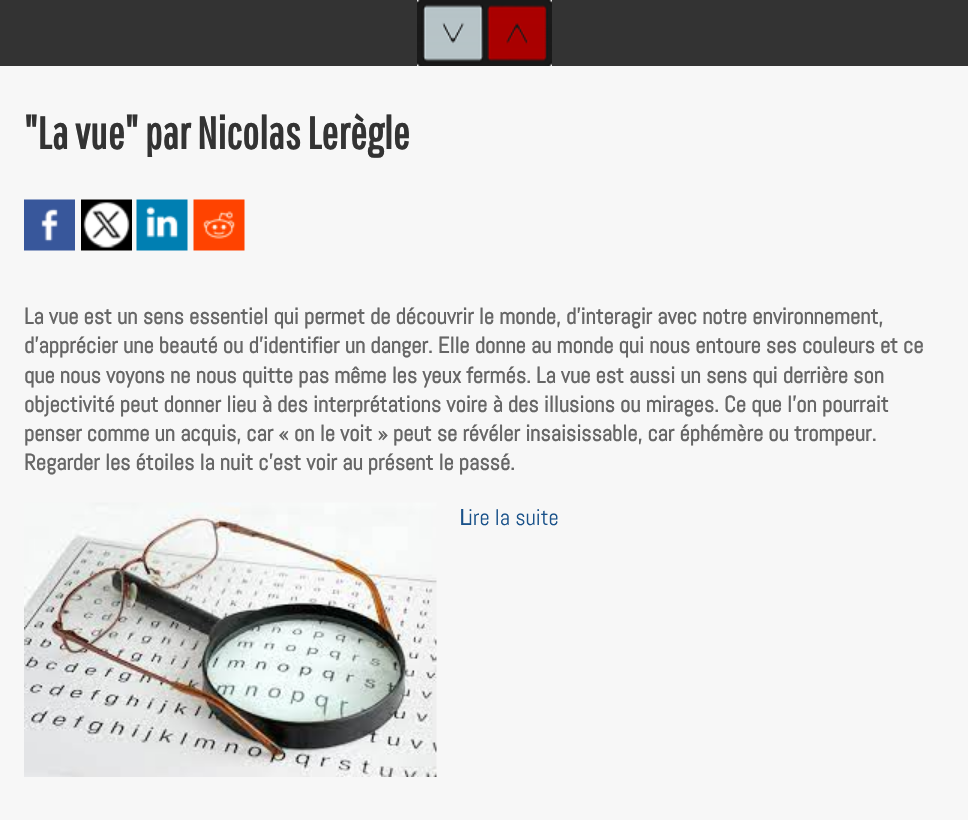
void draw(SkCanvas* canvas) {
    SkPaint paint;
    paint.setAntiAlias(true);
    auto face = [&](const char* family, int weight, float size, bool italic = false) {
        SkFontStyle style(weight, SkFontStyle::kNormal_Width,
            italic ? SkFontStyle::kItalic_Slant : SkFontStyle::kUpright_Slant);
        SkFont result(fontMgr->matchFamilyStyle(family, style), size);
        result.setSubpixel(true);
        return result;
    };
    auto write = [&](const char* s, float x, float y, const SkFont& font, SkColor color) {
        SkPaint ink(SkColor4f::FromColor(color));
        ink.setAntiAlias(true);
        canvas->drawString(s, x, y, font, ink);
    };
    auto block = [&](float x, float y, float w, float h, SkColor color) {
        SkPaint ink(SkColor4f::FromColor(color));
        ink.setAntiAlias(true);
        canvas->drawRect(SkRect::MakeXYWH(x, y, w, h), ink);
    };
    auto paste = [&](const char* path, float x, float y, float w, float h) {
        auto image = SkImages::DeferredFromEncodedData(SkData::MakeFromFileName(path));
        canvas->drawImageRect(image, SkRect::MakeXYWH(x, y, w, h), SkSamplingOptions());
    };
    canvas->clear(SkColorSetRGB(247, 247, 247));
    block(0, 0, 968, 66, SkColorSetRGB(51, 51, 51));
    paste("pic1.png", 417, 0, 135, 66);
    auto kFont1 = face("Pathway Gothic One", 700, 45);
    write("\"La vue\" par Nicolas Lerègle", 24, 149, kFont1, SkColorSetRGB(51, 51, 51));
    paste("pic2.png", 24, 199, 51, 52);
    paste("pic3.png", 81, 199, 51, 52);
    paste("pic4.png", 136, 199, 52, 52);
    paste("pic5.png", 193, 199, 52, 52);
    auto kFont2 = face("Abel", 700, 22.5f);
    write("La vue est un sens essentiel qui permet de découvrir le monde, d’interagir avec notre environnement,", 24, 324, kFont2, SkColorSetRGB(102, 102, 102));
    write("d’apprécier une beauté ou d’identifier un danger. Elle donne au monde qui nous entoure ses couleurs et ce", 24, 353, kFont2, SkColorSetRGB(102, 102, 102));
    write("que nous voyons ne nous quitte pas même les yeux fermés. La vue est aussi un sens qui derrière son", 24, 383, kFont2, SkColorSetRGB(102, 102, 102));
    write("objectivité peut donner lieu à des interprétations voire à des illusions ou mirages. Ce que l’on pourrait", 24, 412, kFont2, SkColorSetRGB(102, 102, 102));
    write("penser comme un acquis, car « on le voit » peut se révéler insaisissable, car éphémère ou trompeur.", 24, 441, kFont2, SkColorSetRGB(102, 102, 102));
    write("Regarder les étoiles la nuit c’est voir au présent le passé.", 24, 470, kFont2, SkColorSetRGB(102, 102, 102));
    paste("pic6.png", 24, 502, 413, 275);
    auto kFont3 = face("Noto Sans", 400, 22.5f);
    write("L", 459, 525, kFont3, SkColorSetRGB(26, 82, 138));
    auto kFont4 = face("Abel", 400, 22.5f);
    write("ire la suite", 468, 525, kFont4, SkColorSetRGB(26, 82, 138));
}
